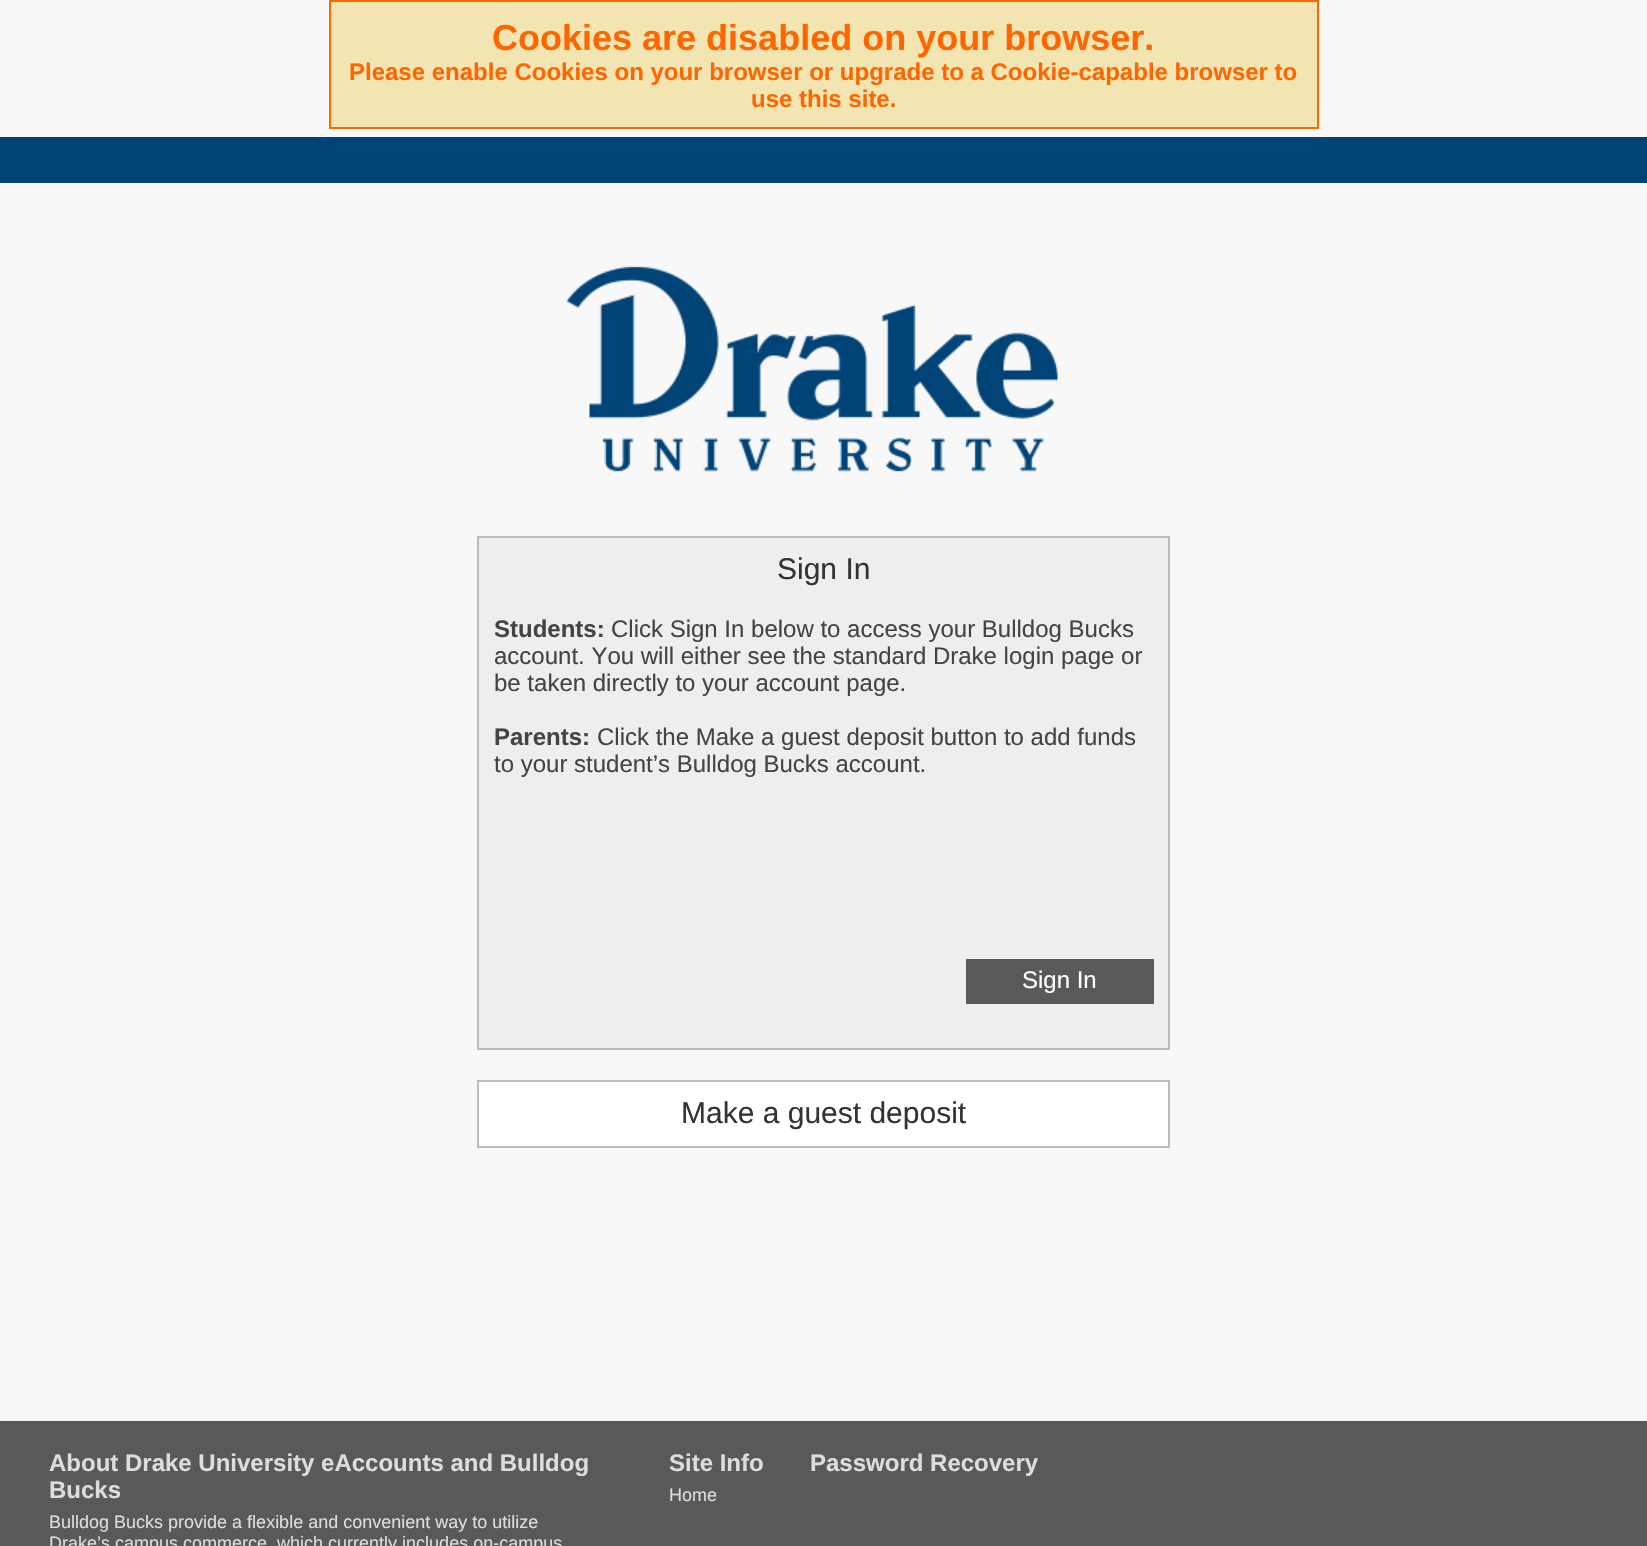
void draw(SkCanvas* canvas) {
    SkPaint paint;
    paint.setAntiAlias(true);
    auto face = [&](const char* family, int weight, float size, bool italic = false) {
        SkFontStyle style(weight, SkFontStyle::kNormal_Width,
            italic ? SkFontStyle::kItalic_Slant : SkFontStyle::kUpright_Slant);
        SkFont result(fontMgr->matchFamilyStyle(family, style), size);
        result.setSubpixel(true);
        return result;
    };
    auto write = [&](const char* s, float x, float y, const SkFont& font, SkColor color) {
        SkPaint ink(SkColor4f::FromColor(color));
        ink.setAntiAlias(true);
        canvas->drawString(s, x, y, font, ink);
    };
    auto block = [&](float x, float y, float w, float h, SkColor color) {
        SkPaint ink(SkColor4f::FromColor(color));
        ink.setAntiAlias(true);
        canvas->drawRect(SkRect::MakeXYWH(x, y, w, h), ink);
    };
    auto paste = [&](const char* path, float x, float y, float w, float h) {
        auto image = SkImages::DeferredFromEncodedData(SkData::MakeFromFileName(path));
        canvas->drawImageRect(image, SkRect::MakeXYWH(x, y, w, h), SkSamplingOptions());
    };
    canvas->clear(SkColorSetRGB(248, 248, 248));
    paint.setColor(SkColorSetRGB(242, 229, 178));
    canvas->drawRect(SkRect::MakeXYWH(330, 1, 988, 127), paint);
    paint.setStyle(SkPaint::kStroke_Style);
    paint.setStrokeWidth(2);
    paint.setColor(SkColorSetRGB(255, 102, 0));
    canvas->drawRect(SkRect::MakeXYWH(330, 1, 988, 127), paint);
    auto kFont1 = face("Liberation Sans", 700, 36);
    write("Cookies are disabled on your browser.", 492, 50, kFont1, SkColorSetRGB(255, 102, 0));
    auto kFont2 = face("Liberation Sans", 700, 24);
    write("Please enable Cookies on your browser or upgrade to a Cookie-capable browser to", 349, 80, kFont2, SkColorSetRGB(255, 102, 0));
    write("use this site.", 751, 107, kFont2, SkColorSetRGB(255, 102, 0));
    block(0, 137, 1647, 46, SkColorSetRGB(0, 68, 119));
    paste("pic1.png", 566, 266, 492, 206);
    paint.setStyle(SkPaint::kFill_Style);
    paint.setColor(SkColorSetRGB(238, 238, 238));
    canvas->drawRect(SkRect::MakeXYWH(478, 537, 691, 512), paint);
    paint.setStyle(SkPaint::kStroke_Style);
    paint.setColor(SkColorSetRGB(187, 187, 187));
    canvas->drawRect(SkRect::MakeXYWH(478, 537, 691, 512), paint);
    auto kFont3 = face("Liberation Sans", 400, 30);
    write("Sign In", 777, 579, kFont3, SkColorSetRGB(51, 51, 51));
    write("Students:", 494, 637, kFont2, SkColorSetRGB(68, 68, 68));
    auto kFont4 = face("Liberation Sans", 400, 24);
    write("Click Sign In below to access your Bulldog Bucks", 611, 637, kFont4, SkColorSetRGB(68, 68, 68));
    write("account. You will either see the standard Drake login page or", 494, 664, kFont4, SkColorSetRGB(68, 68, 68));
    write("be taken directly to your account page.", 494, 691, kFont4, SkColorSetRGB(68, 68, 68));
    write("Parents:", 494, 745, kFont2, SkColorSetRGB(68, 68, 68));
    write("Click the Make a guest deposit button to add funds", 597, 745, kFont4, SkColorSetRGB(68, 68, 68));
    write("to your student’s Bulldog Bucks account.", 494, 772, kFont4, SkColorSetRGB(68, 68, 68));
    block(966, 959, 188, 45, SkColorSetRGB(89, 89, 91));
    write("Sign In", 1022, 988, kFont4, SK_ColorWHITE);
    paint.setStyle(SkPaint::kFill_Style);
    paint.setColor(SK_ColorWHITE);
    canvas->drawRect(SkRect::MakeXYWH(478, 1081, 691, 66), paint);
    paint.setStyle(SkPaint::kStroke_Style);
    paint.setColor(SkColorSetRGB(187, 187, 187));
    canvas->drawRect(SkRect::MakeXYWH(478, 1081, 691, 66), paint);
    write("Make a guest deposit", 681, 1123, kFont3, SkColorSetRGB(51, 51, 51));
    block(0, 1421, 1647, 125, SkColorSetRGB(89, 89, 91));
    write("About Drake University eAccounts and Bulldog", 49, 1471, kFont2, SkColorSetRGB(221, 221, 221));
    write("Bucks", 49, 1498, kFont2, SkColorSetRGB(221, 221, 221));
    auto kFont5 = face("Liberation Sans", 400, 18);
    write("Bulldog Bucks provide a flexible and convenient way to utilize", 49, 1528, kFont5, SkColorSetRGB(221, 221, 221));
    write("Drake’s campus commerce, which currently includes on-campus", 49, 1549, kFont5, SkColorSetRGB(221, 221, 221));
    write("Site Info", 669, 1471, kFont2, SkColorSetRGB(221, 221, 221));
    write("Home", 669, 1501, kFont5, SkColorSetRGB(221, 221, 221));
    write("Password Recovery", 810, 1471, kFont2, SkColorSetRGB(221, 221, 221));
}
